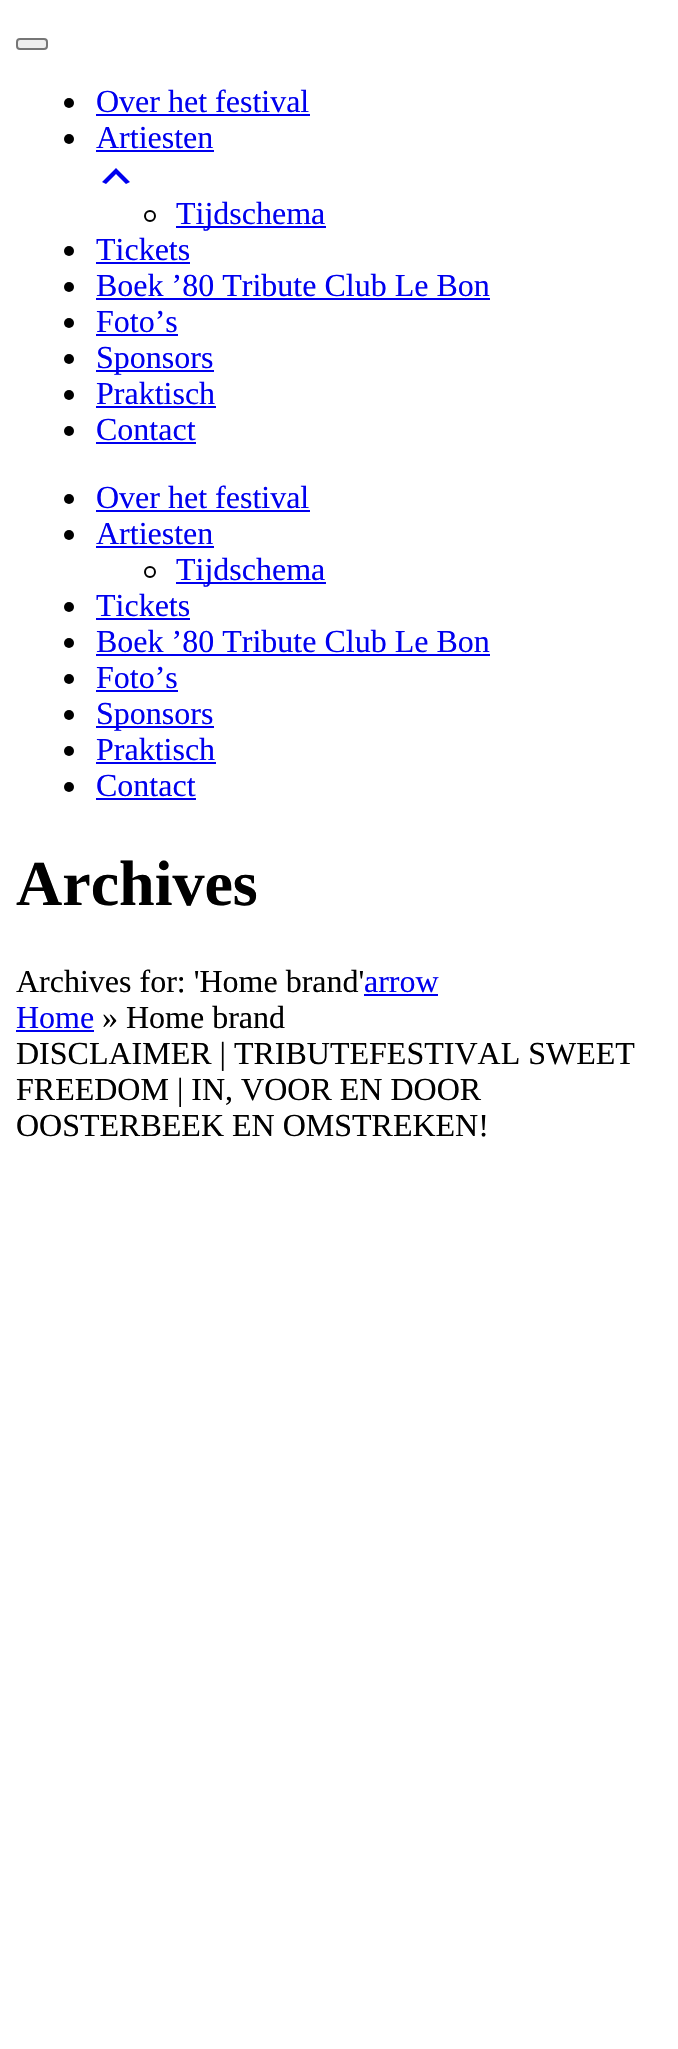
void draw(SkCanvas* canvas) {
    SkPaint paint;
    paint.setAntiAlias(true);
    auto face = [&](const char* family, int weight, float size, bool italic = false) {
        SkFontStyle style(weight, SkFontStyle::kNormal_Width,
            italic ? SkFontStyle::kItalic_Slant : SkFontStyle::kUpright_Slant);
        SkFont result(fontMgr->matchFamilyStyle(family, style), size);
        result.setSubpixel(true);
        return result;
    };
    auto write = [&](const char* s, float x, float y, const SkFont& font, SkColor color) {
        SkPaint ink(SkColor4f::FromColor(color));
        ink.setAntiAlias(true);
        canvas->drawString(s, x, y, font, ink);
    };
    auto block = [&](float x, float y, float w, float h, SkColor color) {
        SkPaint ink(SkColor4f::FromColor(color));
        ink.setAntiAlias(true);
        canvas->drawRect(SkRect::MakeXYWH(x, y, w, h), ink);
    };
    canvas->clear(SK_ColorWHITE);
    paint.setColor(SkColorSetRGB(239, 239, 239));
    canvas->drawRoundRect(SkRect::MakeXYWH(17, 39, 30, 10), 3, 3, paint);
    paint.setStyle(SkPaint::kStroke_Style);
    paint.setStrokeWidth(2);
    paint.setColor(SkColorSetRGB(118, 118, 118));
    canvas->drawRoundRect(SkRect::MakeXYWH(17, 39, 30, 10), 3, 3, paint);
    paint.setStyle(SkPaint::kFill_Style);
    paint.setColor(SK_ColorBLACK);
    canvas->drawCircle(69, 103, 5, paint);
    auto kFont1 = face("Liberation Serif", 400, 32);
    write("Over het festival", 96, 112, kFont1, SkColorSetRGB(0, 0, 238));
    block(96, 114, 214, 2, SkColorSetRGB(0, 0, 238));
    canvas->drawCircle(69, 139, 5, paint);
    write("Artiesten", 96, 148, kFont1, SkColorSetRGB(0, 0, 238));
    block(96, 150, 118, 2, SkColorSetRGB(0, 0, 238));
    paint.setColor(SkColorSetRGB(0, 0, 238));
    canvas->drawPath(SkPathBuilder().moveTo(126, 184).lineTo(116, 174).lineTo(106, 184).lineTo(102, 182).lineTo(116, 168).lineTo(130, 182).close().detach(), paint);
    paint.setStyle(SkPaint::kStroke_Style);
    paint.setColor(SK_ColorBLACK);
    canvas->drawCircle(150, 216, 5, paint);
    block(176, 226, 150, 2, SkColorSetRGB(0, 0, 238));
    write("Tijdschema", 176, 224, kFont1, SkColorSetRGB(0, 0, 238));
    paint.setStyle(SkPaint::kFill_Style);
    canvas->drawCircle(69, 251, 5, paint);
    write("Tickets", 96, 260, kFont1, SkColorSetRGB(0, 0, 238));
    block(96, 262, 94, 2, SkColorSetRGB(0, 0, 238));
    canvas->drawCircle(69, 287, 5, paint);
    write("Boek ’80 Tribute Club Le Bon", 96, 296, kFont1, SkColorSetRGB(0, 0, 238));
    block(96, 298, 394, 2, SkColorSetRGB(0, 0, 238));
    canvas->drawCircle(69, 323, 5, paint);
    write("Foto’s", 96, 332, kFont1, SkColorSetRGB(0, 0, 238));
    block(96, 334, 82, 2, SkColorSetRGB(0, 0, 238));
    canvas->drawCircle(69, 359, 5, paint);
    block(96, 370, 118, 2, SkColorSetRGB(0, 0, 238));
    write("Sponsors", 96, 368, kFont1, SkColorSetRGB(0, 0, 238));
    canvas->drawCircle(69, 395, 5, paint);
    write("Praktisch", 96, 404, kFont1, SkColorSetRGB(0, 0, 238));
    block(96, 406, 120, 2, SkColorSetRGB(0, 0, 238));
    canvas->drawCircle(69, 431, 5, paint);
    write("Contact", 96, 440, kFont1, SkColorSetRGB(0, 0, 238));
    block(96, 442, 100, 2, SkColorSetRGB(0, 0, 238));
    canvas->drawCircle(69, 499, 5, paint);
    write("Over het festival", 96, 508, kFont1, SkColorSetRGB(0, 0, 238));
    block(96, 510, 214, 2, SkColorSetRGB(0, 0, 238));
    canvas->drawCircle(69, 535, 5, paint);
    write("Artiesten", 96, 544, kFont1, SkColorSetRGB(0, 0, 238));
    block(96, 546, 118, 2, SkColorSetRGB(0, 0, 238));
    paint.setStyle(SkPaint::kStroke_Style);
    canvas->drawCircle(150, 572, 5, paint);
    block(176, 582, 150, 2, SkColorSetRGB(0, 0, 238));
    write("Tijdschema", 176, 580, kFont1, SkColorSetRGB(0, 0, 238));
    paint.setStyle(SkPaint::kFill_Style);
    canvas->drawCircle(69, 607, 5, paint);
    write("Tickets", 96, 616, kFont1, SkColorSetRGB(0, 0, 238));
    block(96, 618, 94, 2, SkColorSetRGB(0, 0, 238));
    canvas->drawCircle(69, 643, 5, paint);
    write("Boek ’80 Tribute Club Le Bon", 96, 652, kFont1, SkColorSetRGB(0, 0, 238));
    block(96, 654, 394, 2, SkColorSetRGB(0, 0, 238));
    canvas->drawCircle(69, 679, 5, paint);
    write("Foto’s", 96, 688, kFont1, SkColorSetRGB(0, 0, 238));
    block(96, 690, 82, 2, SkColorSetRGB(0, 0, 238));
    canvas->drawCircle(69, 715, 5, paint);
    block(96, 726, 118, 2, SkColorSetRGB(0, 0, 238));
    write("Sponsors", 96, 724, kFont1, SkColorSetRGB(0, 0, 238));
    canvas->drawCircle(69, 751, 5, paint);
    write("Praktisch", 96, 760, kFont1, SkColorSetRGB(0, 0, 238));
    block(96, 762, 120, 2, SkColorSetRGB(0, 0, 238));
    canvas->drawCircle(69, 787, 5, paint);
    write("Contact", 96, 796, kFont1, SkColorSetRGB(0, 0, 238));
    block(96, 798, 100, 2, SkColorSetRGB(0, 0, 238));
    auto kFont2 = face("Liberation Serif", 700, 64);
    write("Archives", 16, 905, kFont2, SK_ColorBLACK);
    write("Archives for: 'Home brand'", 16, 992, kFont1, SK_ColorBLACK);
    write("arrow", 364, 992, kFont1, SkColorSetRGB(0, 0, 238));
    block(364, 994, 74, 2, SkColorSetRGB(0, 0, 238));
    write("Home", 16, 1028, kFont1, SkColorSetRGB(0, 0, 238));
    block(16, 1030, 78, 2, SkColorSetRGB(0, 0, 238));
    write("» Home brand", 102, 1028, kFont1, SK_ColorBLACK);
    write("DISCLAIMER | TRIBUTEFESTIVAL SWEET", 16, 1064, kFont1, SK_ColorBLACK);
    write("FREEDOM | IN, VOOR EN DOOR", 16, 1100, kFont1, SK_ColorBLACK);
    write("OOSTERBEEK EN OMSTREKEN!", 16, 1136, kFont1, SK_ColorBLACK);
}
